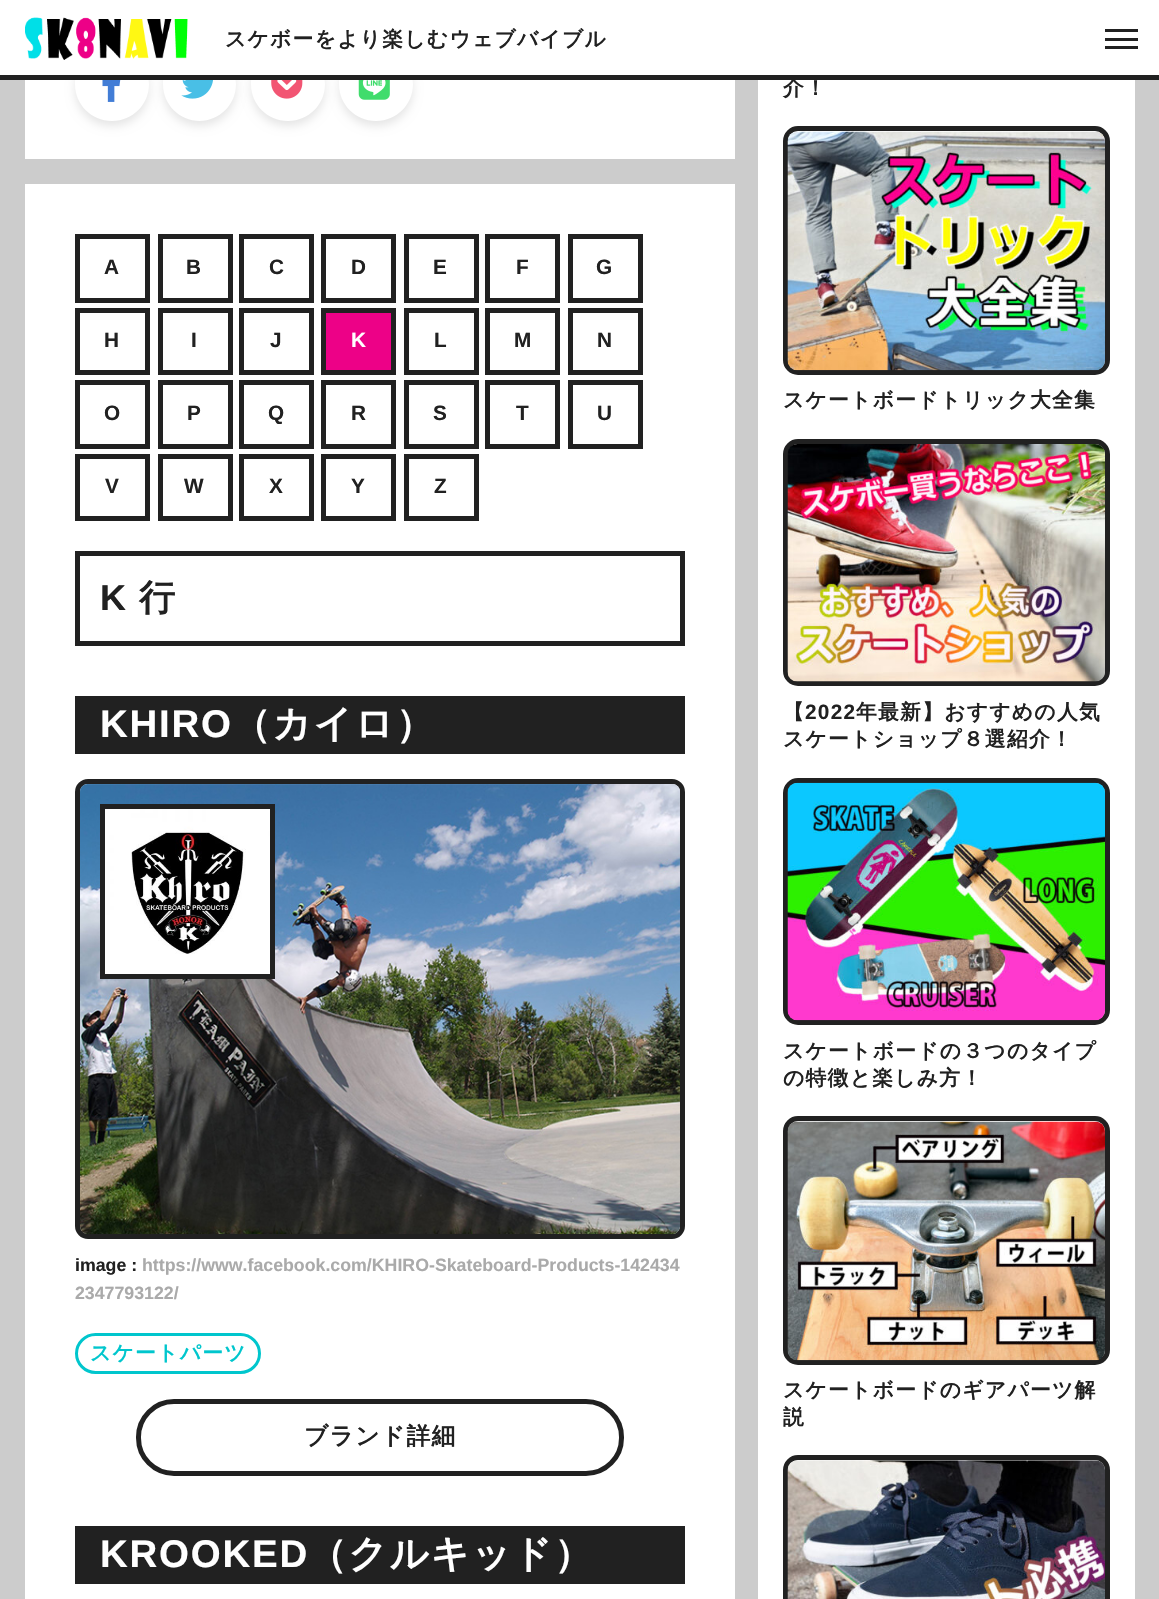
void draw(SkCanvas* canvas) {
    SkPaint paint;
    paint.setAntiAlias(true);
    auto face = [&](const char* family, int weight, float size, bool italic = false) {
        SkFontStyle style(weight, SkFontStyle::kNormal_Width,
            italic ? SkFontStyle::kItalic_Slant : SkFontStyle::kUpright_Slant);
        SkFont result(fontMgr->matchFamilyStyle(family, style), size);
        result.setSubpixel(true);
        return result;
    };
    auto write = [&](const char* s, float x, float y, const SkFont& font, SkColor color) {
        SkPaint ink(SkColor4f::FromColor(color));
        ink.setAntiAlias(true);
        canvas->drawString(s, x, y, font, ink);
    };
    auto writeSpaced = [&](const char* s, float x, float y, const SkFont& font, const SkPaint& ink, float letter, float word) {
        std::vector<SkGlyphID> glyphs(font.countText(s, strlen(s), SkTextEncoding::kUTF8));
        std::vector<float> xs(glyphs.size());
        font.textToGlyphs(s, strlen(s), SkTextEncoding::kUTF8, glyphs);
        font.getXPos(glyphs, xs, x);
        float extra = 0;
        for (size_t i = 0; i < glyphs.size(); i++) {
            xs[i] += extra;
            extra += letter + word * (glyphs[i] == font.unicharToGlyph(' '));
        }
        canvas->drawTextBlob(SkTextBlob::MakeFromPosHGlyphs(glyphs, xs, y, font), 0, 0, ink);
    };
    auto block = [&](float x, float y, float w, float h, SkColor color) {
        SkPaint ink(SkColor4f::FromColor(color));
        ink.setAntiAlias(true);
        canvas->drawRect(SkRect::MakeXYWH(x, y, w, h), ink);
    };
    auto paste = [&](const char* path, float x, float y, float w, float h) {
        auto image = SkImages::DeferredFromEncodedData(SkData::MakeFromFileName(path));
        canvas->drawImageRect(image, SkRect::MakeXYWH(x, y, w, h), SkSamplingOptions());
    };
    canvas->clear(SkColorSetRGB(204, 204, 204));
    block(25, 80, 710, 79, SK_ColorWHITE);
    canvas->save();
    canvas->clipPath(SkPathBuilder(SkPathFillType::kEvenOdd).moveTo(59, 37).lineTo(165, 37).lineTo(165, 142).lineTo(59, 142).close().moveTo(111.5f, 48).lineTo(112.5f, 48).cubicTo(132.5f, 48, 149, 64.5f, 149, 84.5f).cubicTo(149, 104.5f, 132.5f, 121, 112.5f, 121).lineTo(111.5f, 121).cubicTo(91.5f, 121, 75, 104.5f, 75, 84.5f).cubicTo(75, 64.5f, 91.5f, 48, 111.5f, 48).close().detach(), true);
    paint.setColor(SkColorSetARGB(26, 0, 0, 0));
    paint.setMaskFilter(SkMaskFilter::MakeBlur(kNormal_SkBlurStyle, 5));
    canvas->drawRoundRect(SkRect::MakeXYWH(75, 53, 74, 73), 36.5f, 36.5f, paint);
    paint.setMaskFilter(nullptr);
    canvas->restore();
    canvas->save();
    canvas->clipPath(SkPathBuilder(SkPathFillType::kEvenOdd).moveTo(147, 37).lineTo(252, 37).lineTo(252, 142).lineTo(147, 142).close().moveTo(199.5f, 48).cubicTo(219.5f, 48, 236, 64.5f, 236, 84.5f).cubicTo(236, 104.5f, 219.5f, 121, 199.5f, 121).cubicTo(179.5f, 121, 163, 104.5f, 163, 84.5f).cubicTo(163, 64.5f, 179.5f, 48, 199.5f, 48).close().detach(), true);
    paint.setMaskFilter(SkMaskFilter::MakeBlur(kNormal_SkBlurStyle, 5));
    canvas->drawRoundRect(SkRect::MakeXYWH(163, 53, 73, 73), 36.5f, 36.5f, paint);
    paint.setMaskFilter(nullptr);
    canvas->restore();
    canvas->save();
    canvas->clipPath(SkPathBuilder(SkPathFillType::kEvenOdd).moveTo(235, 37).lineTo(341, 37).lineTo(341, 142).lineTo(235, 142).close().moveTo(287.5f, 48).lineTo(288.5f, 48).cubicTo(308.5f, 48, 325, 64.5f, 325, 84.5f).cubicTo(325, 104.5f, 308.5f, 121, 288.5f, 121).lineTo(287.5f, 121).cubicTo(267.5f, 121, 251, 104.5f, 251, 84.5f).cubicTo(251, 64.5f, 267.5f, 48, 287.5f, 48).close().detach(), true);
    paint.setMaskFilter(SkMaskFilter::MakeBlur(kNormal_SkBlurStyle, 5));
    canvas->drawRoundRect(SkRect::MakeXYWH(251, 53, 74, 73), 36.5f, 36.5f, paint);
    paint.setMaskFilter(nullptr);
    canvas->restore();
    canvas->save();
    canvas->clipPath(SkPathBuilder(SkPathFillType::kEvenOdd).moveTo(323, 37).lineTo(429, 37).lineTo(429, 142).lineTo(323, 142).close().moveTo(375.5f, 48).lineTo(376.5f, 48).cubicTo(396.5f, 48, 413, 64.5f, 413, 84.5f).cubicTo(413, 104.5f, 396.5f, 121, 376.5f, 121).lineTo(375.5f, 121).cubicTo(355.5f, 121, 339, 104.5f, 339, 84.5f).cubicTo(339, 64.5f, 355.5f, 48, 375.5f, 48).close().detach(), true);
    paint.setMaskFilter(SkMaskFilter::MakeBlur(kNormal_SkBlurStyle, 5));
    canvas->drawRoundRect(SkRect::MakeXYWH(339, 53, 74, 73), 36.5f, 36.5f, paint);
    paint.setMaskFilter(nullptr);
    canvas->restore();
    block(0, 0, 1159, 75, SK_ColorWHITE);
    block(0, 75, 1159, 5, SkColorSetRGB(33, 33, 33));
    paste("pic1.png", 25, 17, 163, 43);
    auto kFont1 = face("WenQuanYi Zen Hei", 700, 20.75f);
    paint.setColor(SkColorSetRGB(33, 33, 33));
    writeSpaced("スケボーをより楽しむウェブバイブル", 225, 46, kFont1, paint, 1.3f, 0);
    block(1105, 29, 33, 3, SkColorSetRGB(33, 33, 33));
    block(1105, 46, 33, 3, SkColorSetRGB(33, 33, 33));
    block(1105, 38, 33, 3, SkColorSetRGB(33, 33, 33));
    paste("pic2.png", 102, 80, 19, 22);
    paste("pic3.png", 181, 80, 32, 19);
    paste("pic4.png", 271, 80, 32, 19);
    paste("pic5.png", 358, 80, 32, 20);
    block(25, 184, 710, 1415, SK_ColorWHITE);
    paint.setStyle(SkPaint::kStroke_Style);
    paint.setStrokeWidth(5);
    canvas->drawRect(SkRect::MakeXYWH(77.5f, 236.5f, 70, 64), paint);
    auto kFont2 = face("Liberation Sans", 700, 20.75f);
    paint.setStyle(SkPaint::kFill_Style);
    writeSpaced("A", 104, 274, kFont2, paint, 1.3f, 0);
    paint.setStyle(SkPaint::kStroke_Style);
    canvas->drawRect(SkRect::MakeXYWH(160.5f, 236.5f, 70, 64), paint);
    paint.setStyle(SkPaint::kFill_Style);
    writeSpaced("B", 186, 274, kFont2, paint, 1.3f, 0);
    paint.setStyle(SkPaint::kStroke_Style);
    canvas->drawRect(SkRect::MakeXYWH(241.5f, 236.5f, 70, 64), paint);
    paint.setStyle(SkPaint::kFill_Style);
    writeSpaced("C", 269, 274, kFont2, paint, 1.3f, 0);
    paint.setStyle(SkPaint::kStroke_Style);
    canvas->drawRect(SkRect::MakeXYWH(323.5f, 236.5f, 70, 64), paint);
    paint.setStyle(SkPaint::kFill_Style);
    writeSpaced("D", 351, 274, kFont2, paint, 1.3f, 0);
    paint.setStyle(SkPaint::kStroke_Style);
    canvas->drawRect(SkRect::MakeXYWH(406.5f, 236.5f, 70, 64), paint);
    paint.setStyle(SkPaint::kFill_Style);
    writeSpaced("E", 433, 274, kFont2, paint, 1.3f, 0);
    paint.setStyle(SkPaint::kStroke_Style);
    canvas->drawRect(SkRect::MakeXYWH(487.5f, 236.5f, 70, 64), paint);
    paint.setStyle(SkPaint::kFill_Style);
    writeSpaced("F", 516, 274, kFont2, paint, 1.3f, 0);
    paint.setStyle(SkPaint::kStroke_Style);
    canvas->drawRect(SkRect::MakeXYWH(570.5f, 236.5f, 70, 64), paint);
    paint.setStyle(SkPaint::kFill_Style);
    writeSpaced("G", 596, 274, kFont2, paint, 1.3f, 0);
    paint.setStyle(SkPaint::kStroke_Style);
    canvas->drawRect(SkRect::MakeXYWH(77.5f, 310.5f, 70, 62), paint);
    paint.setStyle(SkPaint::kFill_Style);
    writeSpaced("H", 104, 347, kFont2, paint, 1.3f, 0);
    paint.setStyle(SkPaint::kStroke_Style);
    canvas->drawRect(SkRect::MakeXYWH(160.5f, 310.5f, 70, 62), paint);
    paint.setStyle(SkPaint::kFill_Style);
    writeSpaced("I", 191, 347, kFont2, paint, 1.3f, 0);
    paint.setStyle(SkPaint::kStroke_Style);
    canvas->drawRect(SkRect::MakeXYWH(241.5f, 310.5f, 70, 62), paint);
    paint.setStyle(SkPaint::kFill_Style);
    writeSpaced("J", 270, 347, kFont2, paint, 1.3f, 0);
    paint.setColor(SkColorSetRGB(237, 1, 135));
    canvas->drawRect(SkRect::MakeXYWH(323.5f, 310.5f, 70, 62), paint);
    paint.setStyle(SkPaint::kStroke_Style);
    paint.setColor(SkColorSetRGB(33, 33, 33));
    canvas->drawRect(SkRect::MakeXYWH(323.5f, 310.5f, 70, 62), paint);
    paint.setStyle(SkPaint::kFill_Style);
    paint.setColor(SK_ColorWHITE);
    writeSpaced("K", 351, 347, kFont2, paint, 1.3f, 0);
    paint.setStyle(SkPaint::kStroke_Style);
    paint.setColor(SkColorSetRGB(33, 33, 33));
    canvas->drawRect(SkRect::MakeXYWH(406.5f, 310.5f, 70, 62), paint);
    paint.setStyle(SkPaint::kFill_Style);
    writeSpaced("L", 434, 347, kFont2, paint, 1.3f, 0);
    paint.setStyle(SkPaint::kStroke_Style);
    canvas->drawRect(SkRect::MakeXYWH(487.5f, 310.5f, 70, 62), paint);
    paint.setStyle(SkPaint::kFill_Style);
    writeSpaced("M", 514, 347, kFont2, paint, 1.3f, 0);
    paint.setStyle(SkPaint::kStroke_Style);
    canvas->drawRect(SkRect::MakeXYWH(570.5f, 310.5f, 70, 62), paint);
    paint.setStyle(SkPaint::kFill_Style);
    writeSpaced("N", 597, 347, kFont2, paint, 1.3f, 0);
    paint.setStyle(SkPaint::kStroke_Style);
    canvas->drawRect(SkRect::MakeXYWH(77.5f, 382.5f, 70, 64), paint);
    paint.setStyle(SkPaint::kFill_Style);
    writeSpaced("O", 104, 420, kFont2, paint, 1.3f, 0);
    paint.setStyle(SkPaint::kStroke_Style);
    canvas->drawRect(SkRect::MakeXYWH(160.5f, 382.5f, 70, 64), paint);
    paint.setStyle(SkPaint::kFill_Style);
    writeSpaced("P", 187, 420, kFont2, paint, 1.3f, 0);
    paint.setStyle(SkPaint::kStroke_Style);
    canvas->drawRect(SkRect::MakeXYWH(241.5f, 382.5f, 70, 64), paint);
    paint.setStyle(SkPaint::kFill_Style);
    writeSpaced("Q", 268, 420, kFont2, paint, 1.3f, 0);
    paint.setStyle(SkPaint::kStroke_Style);
    canvas->drawRect(SkRect::MakeXYWH(323.5f, 382.5f, 70, 64), paint);
    paint.setStyle(SkPaint::kFill_Style);
    writeSpaced("R", 351, 420, kFont2, paint, 1.3f, 0);
    paint.setStyle(SkPaint::kStroke_Style);
    canvas->drawRect(SkRect::MakeXYWH(406.5f, 382.5f, 70, 64), paint);
    paint.setStyle(SkPaint::kFill_Style);
    writeSpaced("S", 433, 420, kFont2, paint, 1.3f, 0);
    paint.setStyle(SkPaint::kStroke_Style);
    canvas->drawRect(SkRect::MakeXYWH(487.5f, 382.5f, 70, 64), paint);
    paint.setStyle(SkPaint::kFill_Style);
    writeSpaced("T", 516, 420, kFont2, paint, 1.3f, 0);
    paint.setStyle(SkPaint::kStroke_Style);
    canvas->drawRect(SkRect::MakeXYWH(570.5f, 382.5f, 70, 64), paint);
    paint.setStyle(SkPaint::kFill_Style);
    writeSpaced("U", 597, 420, kFont2, paint, 1.3f, 0);
    paint.setStyle(SkPaint::kStroke_Style);
    canvas->drawRect(SkRect::MakeXYWH(77.5f, 456.5f, 70, 62), paint);
    paint.setStyle(SkPaint::kFill_Style);
    writeSpaced("V", 105, 493, kFont2, paint, 1.3f, 0);
    paint.setStyle(SkPaint::kStroke_Style);
    canvas->drawRect(SkRect::MakeXYWH(160.5f, 456.5f, 70, 62), paint);
    paint.setStyle(SkPaint::kFill_Style);
    writeSpaced("W", 184, 493, kFont2, paint, 1.3f, 0);
    paint.setStyle(SkPaint::kStroke_Style);
    canvas->drawRect(SkRect::MakeXYWH(241.5f, 456.5f, 70, 62), paint);
    paint.setStyle(SkPaint::kFill_Style);
    writeSpaced("X", 269, 493, kFont2, paint, 1.3f, 0);
    paint.setStyle(SkPaint::kStroke_Style);
    canvas->drawRect(SkRect::MakeXYWH(323.5f, 456.5f, 70, 62), paint);
    paint.setStyle(SkPaint::kFill_Style);
    writeSpaced("Y", 351, 493, kFont2, paint, 1.3f, 0);
    paint.setStyle(SkPaint::kStroke_Style);
    canvas->drawRect(SkRect::MakeXYWH(406.5f, 456.5f, 70, 62), paint);
    paint.setStyle(SkPaint::kFill_Style);
    writeSpaced("Z", 434, 493, kFont2, paint, 1.3f, 0);
    paint.setStyle(SkPaint::kStroke_Style);
    canvas->drawRect(SkRect::MakeXYWH(77.5f, 553.5f, 605, 90), paint);
    auto kFont3 = face("Liberation Sans", 700, 36);
    paint.setStyle(SkPaint::kFill_Style);
    writeSpaced("K", 100, 610, kFont3, paint, 1.75f, 0);
    auto kFont4 = face("WenQuanYi Zen Hei", 700, 36);
    writeSpaced("行", 139, 610, kFont4, paint, 1.75f, 0);
    block(75, 696, 610, 58, SkColorSetRGB(33, 33, 33));
    auto kFont5 = face("Liberation Sans", 700, 38.5f);
    paint.setColor(SK_ColorWHITE);
    writeSpaced("KHIRO", 100, 737, kFont5, paint, 1.75f, 0);
    auto kFont6 = face("WenQuanYi Zen Hei", 700, 38.5f);
    writeSpaced("（カイロ）", 232, 737, kFont6, paint, 1.75f, 0);
    paint.setStyle(SkPaint::kStroke_Style);
    paint.setColor(SkColorSetRGB(33, 33, 33));
    canvas->drawRoundRect(SkRect::MakeXYWH(77.5f, 781.5f, 605, 455), 10.5f, 10.5f, paint);
    paste("pic6.png", 80, 784, 600, 450);
    canvas->drawRect(SkRect::MakeXYWH(102.5f, 806.5f, 170, 170), paint);
    paste("pic7.png", 105, 809, 165, 165);
    auto kFont7 = face("Liberation Sans", 700, 17.75f);
    write("image :", 75, 1271, kFont7, SkColorSetRGB(33, 33, 33));
    write("https://www.facebook.com/KHIRO-Skateboard-Products-142434", 142, 1271, kFont7, SkColorSetRGB(170, 170, 170));
    write("2347793122/", 75, 1299, kFont7, SkColorSetRGB(170, 170, 170));
    paint.setStrokeWidth(3);
    paint.setColor(SkColorSetRGB(0, 198, 205));
    canvas->drawRoundRect(SkRect::MakeXYWH(76.5f, 1334.5f, 183, 38), 19, 19, paint);
    paint.setStyle(SkPaint::kFill_Style);
    writeSpaced("スケートパーツ", 90, 1360, kFont1, paint, 1.3f, 0);
    paint.setStyle(SkPaint::kStroke_Style);
    paint.setStrokeWidth(5);
    paint.setColor(SkColorSetRGB(33, 33, 33));
    canvas->drawRoundRect(SkRect::MakeXYWH(138.5f, 1401.5f, 483, 72), 35.5f, 35.5f, paint);
    auto kFont8 = face("WenQuanYi Zen Hei", 700, 23.75f);
    paint.setStyle(SkPaint::kFill_Style);
    writeSpaced("ブランド詳細", 304, 1444, kFont8, paint, 1.3f, 0);
    block(75, 1526, 610, 58, SkColorSetRGB(33, 33, 33));
    paint.setColor(SK_ColorWHITE);
    writeSpaced("KROOKED", 100, 1567, kFont5, paint, 1.75f, 0);
    writeSpaced("（クルキッド）", 308, 1567, kFont6, paint, 1.75f, 0);
    block(758, 80, 377, 1519, SK_ColorWHITE);
    paint.setColor(SkColorSetRGB(33, 33, 33));
    writeSpaced("介！", 783, 95, kFont1, paint, 1.3f, 0);
    paint.setStyle(SkPaint::kStroke_Style);
    canvas->drawRoundRect(SkRect::MakeXYWH(785.5f, 128.5f, 322, 244), 12.5f, 12.5f, paint);
    paste("pic8.png", 787, 131, 318, 240);
    paint.setStyle(SkPaint::kFill_Style);
    writeSpaced("スケートボードトリック大全集", 783, 407, kFont1, paint, 1.3f, 0);
    paint.setStyle(SkPaint::kStroke_Style);
    canvas->drawRoundRect(SkRect::MakeXYWH(785.5f, 441.5f, 322, 242), 12.5f, 12.5f, paint);
    paste("pic9.png", 787, 444, 318, 238);
    paint.setStyle(SkPaint::kFill_Style);
    writeSpaced("【", 783, 719, kFont1, paint, 1.3f, 0);
    writeSpaced("2022", 805, 719, kFont2, paint, 1.3f, 0);
    writeSpaced("年最新】おすすめの人気", 856, 719, kFont1, paint, 1.3f, 0);
    writeSpaced("スケートショップ８選紹介！", 783, 746, kFont1, paint, 1.3f, 0);
    paint.setStyle(SkPaint::kStroke_Style);
    canvas->drawRoundRect(SkRect::MakeXYWH(785.5f, 780.5f, 322, 242), 12.5f, 12.5f, paint);
    paste("pic10.png", 787, 782, 318, 239);
    paint.setStyle(SkPaint::kFill_Style);
    writeSpaced("スケートボードの３つのタイプ", 783, 1058, kFont1, paint, 1.3f, 0);
    writeSpaced("の特徴と楽しみ方！", 783, 1085, kFont1, paint, 1.3f, 0);
    paint.setStyle(SkPaint::kStroke_Style);
    canvas->drawRoundRect(SkRect::MakeXYWH(785.5f, 1118.5f, 322, 244), 12.5f, 12.5f, paint);
    paste("pic11.png", 787, 1121, 318, 240);
    paint.setStyle(SkPaint::kFill_Style);
    writeSpaced("スケートボードのギアパーツ解", 783, 1397, kFont1, paint, 1.3f, 0);
    writeSpaced("説", 783, 1424, kFont1, paint, 1.3f, 0);
    paint.setStyle(SkPaint::kStroke_Style);
    canvas->drawRoundRect(SkRect::MakeXYWH(785.5f, 1457.5f, 322, 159), 12.5f, 12.5f, paint);
    paste("pic12.png", 787, 1460, 318, 139);
}
